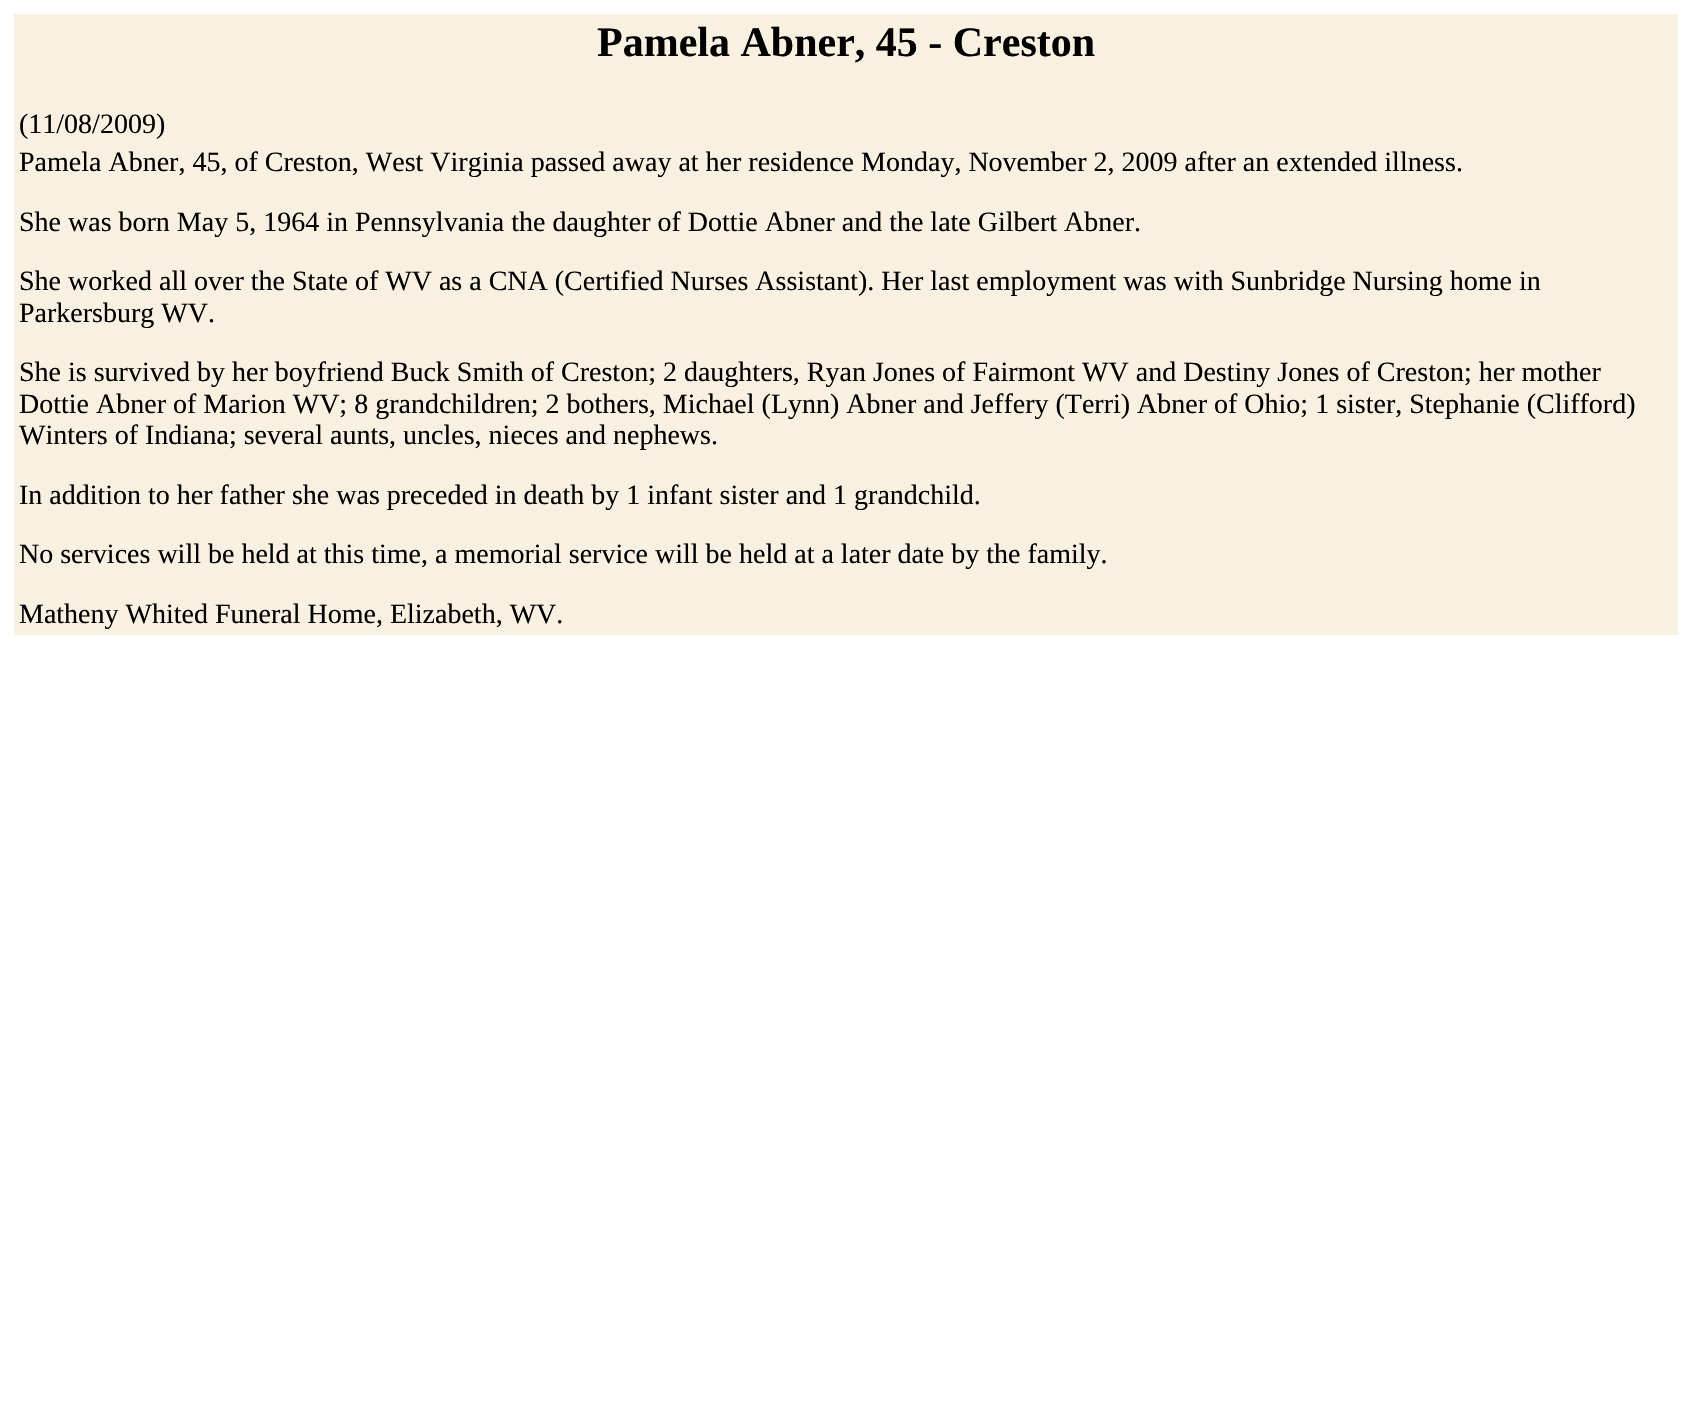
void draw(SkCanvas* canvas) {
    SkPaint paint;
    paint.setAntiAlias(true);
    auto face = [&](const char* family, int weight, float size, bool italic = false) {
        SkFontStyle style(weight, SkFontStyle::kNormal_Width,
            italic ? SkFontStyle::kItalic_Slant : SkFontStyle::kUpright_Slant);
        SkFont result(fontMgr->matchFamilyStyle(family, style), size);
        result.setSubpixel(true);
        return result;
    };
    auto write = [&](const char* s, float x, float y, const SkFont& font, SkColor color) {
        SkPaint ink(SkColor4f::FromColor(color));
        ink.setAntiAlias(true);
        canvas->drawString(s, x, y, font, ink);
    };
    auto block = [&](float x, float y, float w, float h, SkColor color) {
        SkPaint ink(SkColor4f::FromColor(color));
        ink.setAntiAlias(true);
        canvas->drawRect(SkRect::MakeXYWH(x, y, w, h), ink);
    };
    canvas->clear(SK_ColorWHITE);
    block(14, 14, 1664, 621, SkColorSetRGB(248, 240, 224));
    auto kFont1 = face("Liberation Serif", 700, 42);
    write("Pamela Abner, 45 - Creston", 597, 56, kFont1, SK_ColorBLACK);
    auto kFont2 = face("Liberation Serif", 400, 28);
    write("(11/08/2009)", 19, 133, kFont2, SK_ColorBLACK);
    write("Pamela Abner, 45, of Creston, West Virginia passed away at her residence Monday, November 2, 2009 after an extended illness.", 19, 171, kFont2, SK_ColorBLACK);
    write("She was born May 5, 1964 in Pennsylvania the daughter of Dottie Abner and the late Gilbert Abner.", 19, 231, kFont2, SK_ColorBLACK);
    write("She worked all over the State of WV as a CNA (Certified Nurses Assistant). Her last employment was with Sunbridge Nursing home in", 19, 290, kFont2, SK_ColorBLACK);
    write("Parkersburg WV.", 19, 322, kFont2, SK_ColorBLACK);
    write("She is survived by her boyfriend Buck Smith of Creston; 2 daughters, Ryan Jones of Fairmont WV and Destiny Jones of Creston; her mother", 19, 381, kFont2, SK_ColorBLACK);
    write("Dottie Abner of Marion WV; 8 grandchildren; 2 bothers, Michael (Lynn) Abner and Jeffery (Terri) Abner of Ohio; 1 sister, Stephanie (Clifford)", 19, 413, kFont2, SK_ColorBLACK);
    write("Winters of Indiana; several aunts, uncles, nieces and nephews.", 19, 444, kFont2, SK_ColorBLACK);
    write("In addition to her father she was preceded in death by 1 infant sister and 1 grandchild.", 19, 504, kFont2, SK_ColorBLACK);
    write("No services will be held at this time, a memorial service will be held at a later date by the family.", 19, 563, kFont2, SK_ColorBLACK);
    write("Matheny Whited Funeral Home, Elizabeth, WV.", 19, 623, kFont2, SK_ColorBLACK);
}
